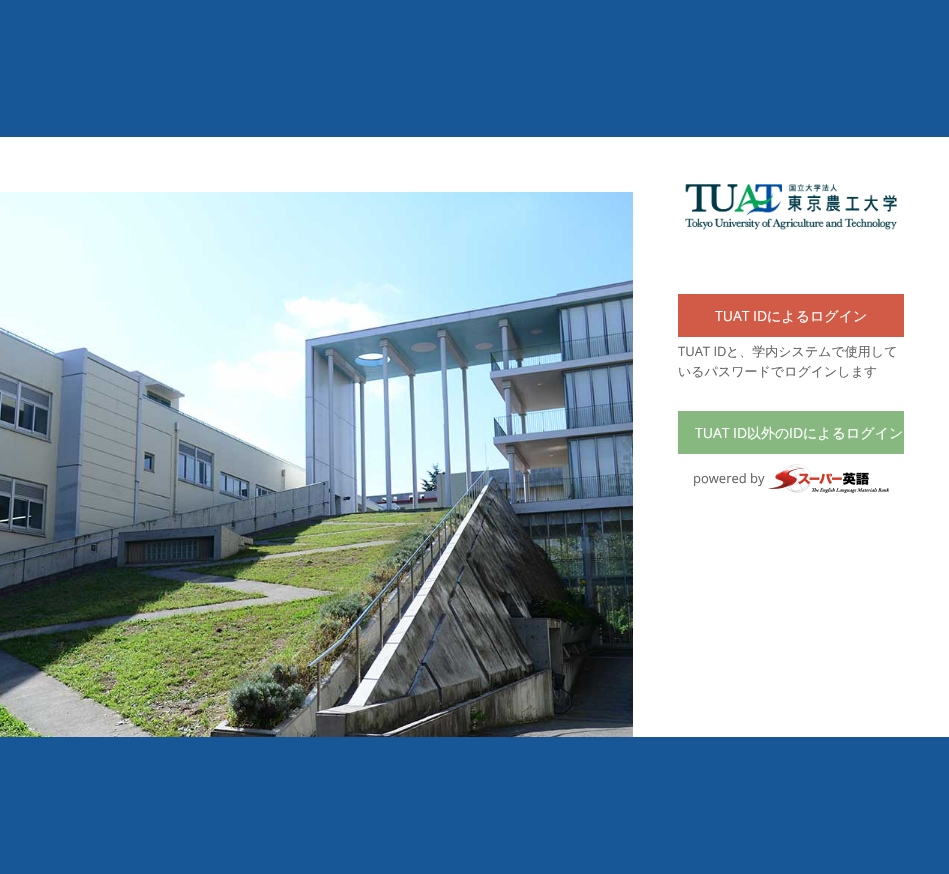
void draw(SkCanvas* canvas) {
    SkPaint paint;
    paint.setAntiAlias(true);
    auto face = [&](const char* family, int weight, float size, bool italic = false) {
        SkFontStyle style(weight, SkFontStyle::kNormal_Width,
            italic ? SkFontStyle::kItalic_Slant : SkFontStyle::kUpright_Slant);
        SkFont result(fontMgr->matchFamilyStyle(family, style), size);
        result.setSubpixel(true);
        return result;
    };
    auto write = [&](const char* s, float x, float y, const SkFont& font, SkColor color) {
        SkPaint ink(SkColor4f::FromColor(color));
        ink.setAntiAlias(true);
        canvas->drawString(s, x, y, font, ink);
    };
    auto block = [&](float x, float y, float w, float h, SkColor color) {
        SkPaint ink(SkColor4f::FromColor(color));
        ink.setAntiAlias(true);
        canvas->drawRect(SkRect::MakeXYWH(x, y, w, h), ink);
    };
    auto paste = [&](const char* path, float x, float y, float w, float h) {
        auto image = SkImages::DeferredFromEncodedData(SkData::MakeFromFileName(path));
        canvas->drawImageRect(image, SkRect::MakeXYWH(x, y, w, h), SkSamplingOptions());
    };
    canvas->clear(SkColorSetRGB(23, 86, 151));
    block(0, 137, 949, 600, SK_ColorWHITE);
    paste("pic1.png", 0, 192, 633, 545);
    paste("pic2.png", 685, 184, 212, 46);
    block(678, 294, 226, 43, SkColorSetRGB(209, 91, 71));
    auto kFont1 = face("Open Sans", 400, 14);
    write("TUAT ID", 715, 321, kFont1, SK_ColorWHITE);
    auto kFont2 = face("WenQuanYi Zen Hei", 500, 14);
    write("によるログイン", 767, 321, kFont2, SK_ColorWHITE);
    auto kFont3 = face("Open Sans", 400, 13);
    write("TUAT ID", 678, 356, kFont3, SkColorSetRGB(102, 102, 102));
    auto kFont4 = face("WenQuanYi Zen Hei", 500, 13);
    write("と、学内システムで使用して", 726, 356, kFont4, SkColorSetRGB(102, 102, 102));
    write("いるパスワードでログインします", 678, 376, kFont4, SkColorSetRGB(102, 102, 102));
    block(678, 411, 226, 43, SkColorSetRGB(135, 184, 127));
    write("TUAT ID", 695, 438, kFont1, SK_ColorWHITE);
    write("以外の", 747, 438, kFont2, SK_ColorWHITE);
    write("ID", 789, 438, kFont1, SK_ColorWHITE);
    write("によるログイン", 803, 438, kFont2, SK_ColorWHITE);
    write("powered by", 693, 483, kFont3, SkColorSetRGB(102, 102, 102));
    paste("pic3.png", 768, 464, 121, 29);
}
